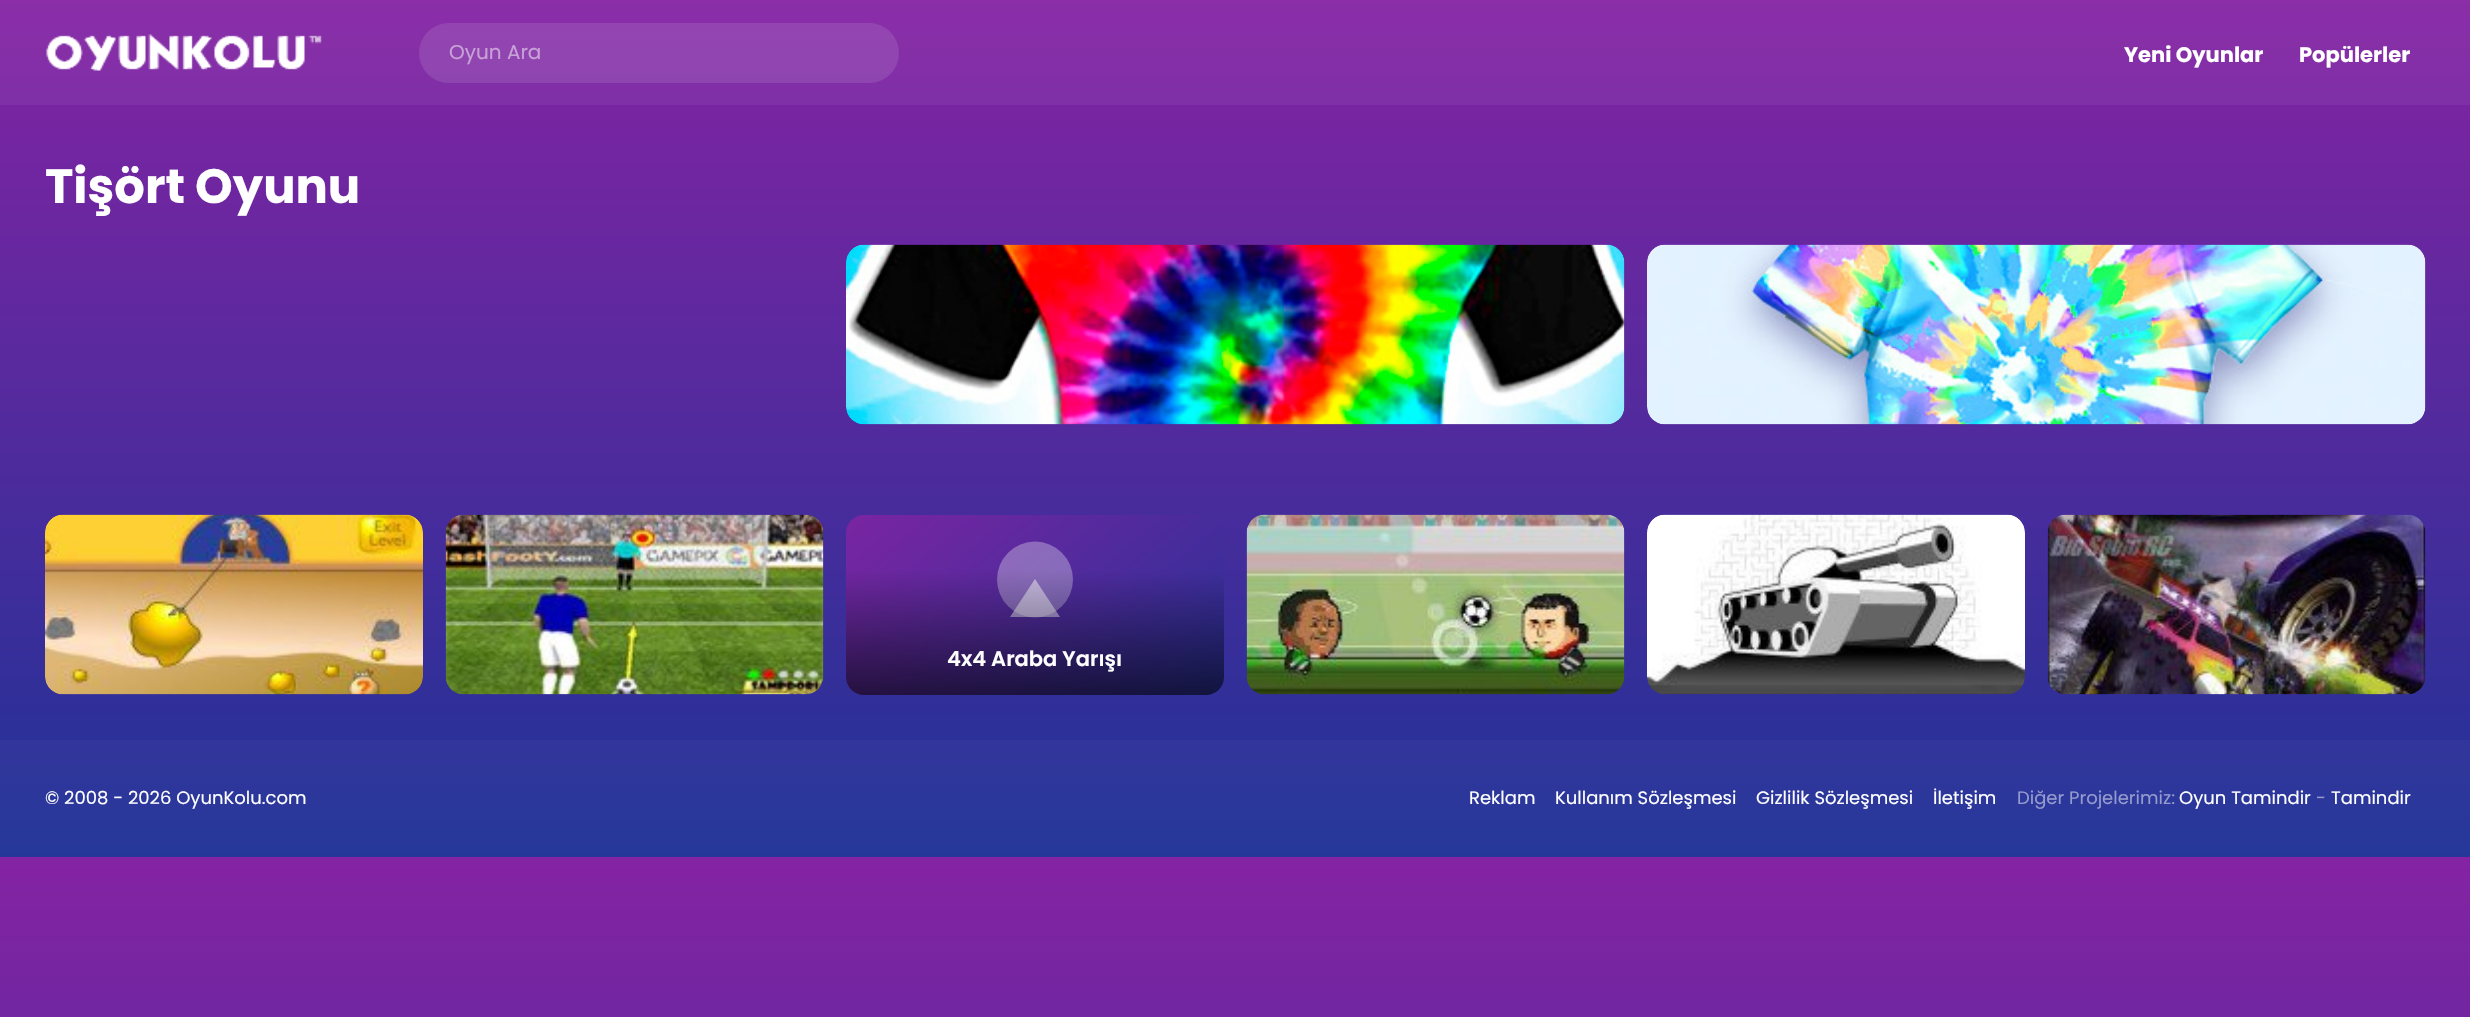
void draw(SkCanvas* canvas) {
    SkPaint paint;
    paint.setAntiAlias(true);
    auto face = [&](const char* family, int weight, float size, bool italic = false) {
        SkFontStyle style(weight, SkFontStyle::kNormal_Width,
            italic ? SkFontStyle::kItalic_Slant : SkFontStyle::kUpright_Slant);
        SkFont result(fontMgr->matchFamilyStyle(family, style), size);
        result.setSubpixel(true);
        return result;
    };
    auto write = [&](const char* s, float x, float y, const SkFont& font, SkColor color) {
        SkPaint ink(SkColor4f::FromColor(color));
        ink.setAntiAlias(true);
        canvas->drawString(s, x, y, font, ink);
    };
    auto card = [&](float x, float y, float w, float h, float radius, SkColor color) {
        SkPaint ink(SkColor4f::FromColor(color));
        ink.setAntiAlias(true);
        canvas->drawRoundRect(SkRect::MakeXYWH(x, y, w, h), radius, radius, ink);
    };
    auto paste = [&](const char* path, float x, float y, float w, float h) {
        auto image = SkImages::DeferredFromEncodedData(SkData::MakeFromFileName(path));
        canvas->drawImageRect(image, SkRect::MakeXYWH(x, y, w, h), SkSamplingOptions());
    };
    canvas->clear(SK_ColorWHITE);
    {
        const SkColor colors[] = {SkColorSetRGB(133, 35, 163), SkColorSetRGB(30, 50, 151)};
        const float stops[] = {0, 1};
        const SkPoint ends[] = {{1235, 0}, {1235, 857}};
        paint.setShader(SkGradientShader::MakeLinear(ends, colors, stops, 2, SkTileMode::kClamp));
        paint.setAlpha(255);
    }
    canvas->drawRect(SkRect::MakeXYWH(0, 105, 2470, 635), paint);
    {
        const SkColor colors[] = {SkColorSetRGB(137, 42, 166), SkColorSetRGB(37, 56, 154)};
        const float stops[] = {0, 1};
        const SkPoint ends[] = {{1235, 0}, {1235, 857}};
        paint.setShader(SkGradientShader::MakeLinear(ends, colors, stops, 2, SkTileMode::kClamp));
        paint.setAlpha(255);
    }
    canvas->drawRect(SkRect::MakeXYWH(0, 740, 2470, 117), paint);
    {
        const SkColor colors[] = {SkColorSetRGB(139, 46, 168), SkColorSetRGB(41, 60, 156)};
        const float stops[] = {0, 1};
        const SkPoint ends[] = {{1235, 0}, {1235, 857}};
        paint.setShader(SkGradientShader::MakeLinear(ends, colors, stops, 2, SkTileMode::kClamp));
        paint.setAlpha(255);
    }
    canvas->drawRect(SkRect::MakeXYWH(0, 0, 2470, 105), paint);
    {
        const SkColor colors[] = {SkColorSetRGB(133, 35, 163), SkColorSetRGB(30, 50, 151)};
        const float stops[] = {0, 1};
        const SkPoint ends[] = {{1235, 856}, {1235, 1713}};
        paint.setShader(SkGradientShader::MakeLinear(ends, colors, stops, 2, SkTileMode::kClamp));
        paint.setAlpha(255);
    }
    canvas->drawRect(SkRect::MakeXYWH(0, 857, 2470, 160), paint);
    paste("pic1.png", 46, 34, 276, 37);
    card(419, 23, 480, 60, 30, SkColorSetARGB(26, 255, 255, 255));
    auto kFont1 = face("Poppins", 400, 20);
    write("Oyun Ara", 449, 59, kFont1, SkColorSetRGB(200, 161, 215));
    auto kFont2 = face("Poppins", 700, 21);
    write("Yeni Oyunlar", 2124, 62, kFont2, SK_ColorWHITE);
    write("Popülerler", 2299, 62, kFont2, SK_ColorWHITE);
    auto kFont3 = face("Poppins", 700, 48);
    write("Tişört Oyunu", 45, 203, kFont3, SK_ColorWHITE);
    paste("pic2.png", 846, 244, 779, 181);
    paste("pic3.png", 1647, 244, 779, 181);
    paste("pic4.png", 45, 514, 378, 181);
    paste("pic5.png", 445, 514, 379, 181);
    {
        const SkColor colors[] = {SkColorSetRGB(133, 35, 163), SkColorSetRGB(30, 50, 151)};
        const float stops[] = {0, 1};
        const SkPoint ends[] = {{846, 447}, {1156, 819}};
        paint.setShader(SkGradientShader::MakeLinear(ends, colors, stops, 2, SkTileMode::kClamp));
        paint.setAlpha(255);
    }
    canvas->drawRoundRect(SkRect::MakeXYWH(846, 515, 378, 180), 18, 18, paint);
    paint.setShader(nullptr);
    paint.setColor(SkColorSetARGB(77, 255, 255, 255));
    canvas->drawCircle(1035, 579.5f, 38, paint);
    paint.setColor(SkColorSetARGB(128, 255, 255, 255));
    canvas->drawPath(SkPathBuilder().moveTo(1035, 579).lineTo(1010, 617).lineTo(1060, 617).close().detach(), paint);
    {
        const SkColor colors[] = {SkColorSetARGB(153, 0, 0, 0), SkColorSetARGB(0, 0, 0, 0)};
        const float stops[] = {0, 1};
        const SkPoint ends[] = {{1035, 695}, {1035, 570}};
        paint.setShader(SkGradientShader::MakeLinear(ends, colors, stops, 2, SkTileMode::kClamp));
        paint.setAlpha(255);
    }
    canvas->drawPath(SkPathBuilder().moveTo(846, 570).lineTo(1224, 570).lineTo(1224, 677).cubicTo(1224, 687, 1216, 695, 1206, 695).lineTo(864, 695).cubicTo(854, 695, 846, 687, 846, 677).close().detach(), paint);
    auto kFont4 = face("Poppins", 600, 21);
    write("4x4 Araba Yarışı", 947, 666, kFont4, SK_ColorWHITE);
    paste("pic6.png", 1246, 514, 379, 181);
    paste("pic7.png", 1647, 514, 378, 181);
    paste("pic8.png", 2047, 514, 379, 181);
    auto kFont5 = face("Poppins", 400, 18);
    write("© 2008 - 2026 OyunKolu.com", 45, 804, kFont5, SK_ColorWHITE);
    write("Reklam", 1469, 804, kFont5, SK_ColorWHITE);
    write("Kullanım Sözleşmesi", 1555, 804, kFont5, SK_ColorWHITE);
    write("Gizlilik Sözleşmesi", 1756, 804, kFont5, SK_ColorWHITE);
    write("İletişim", 1933, 804, kFont5, SK_ColorWHITE);
    write("Diğer Projelerimiz:", 2017, 804, kFont5, SkColorSetRGB(149, 155, 205));
    write("Oyun Tamindir", 2179, 804, kFont5, SK_ColorWHITE);
    write("-", 2316, 804, kFont5, SkColorSetRGB(149, 155, 205));
    write("Tamindir", 2331, 804, kFont5, SK_ColorWHITE);
}
